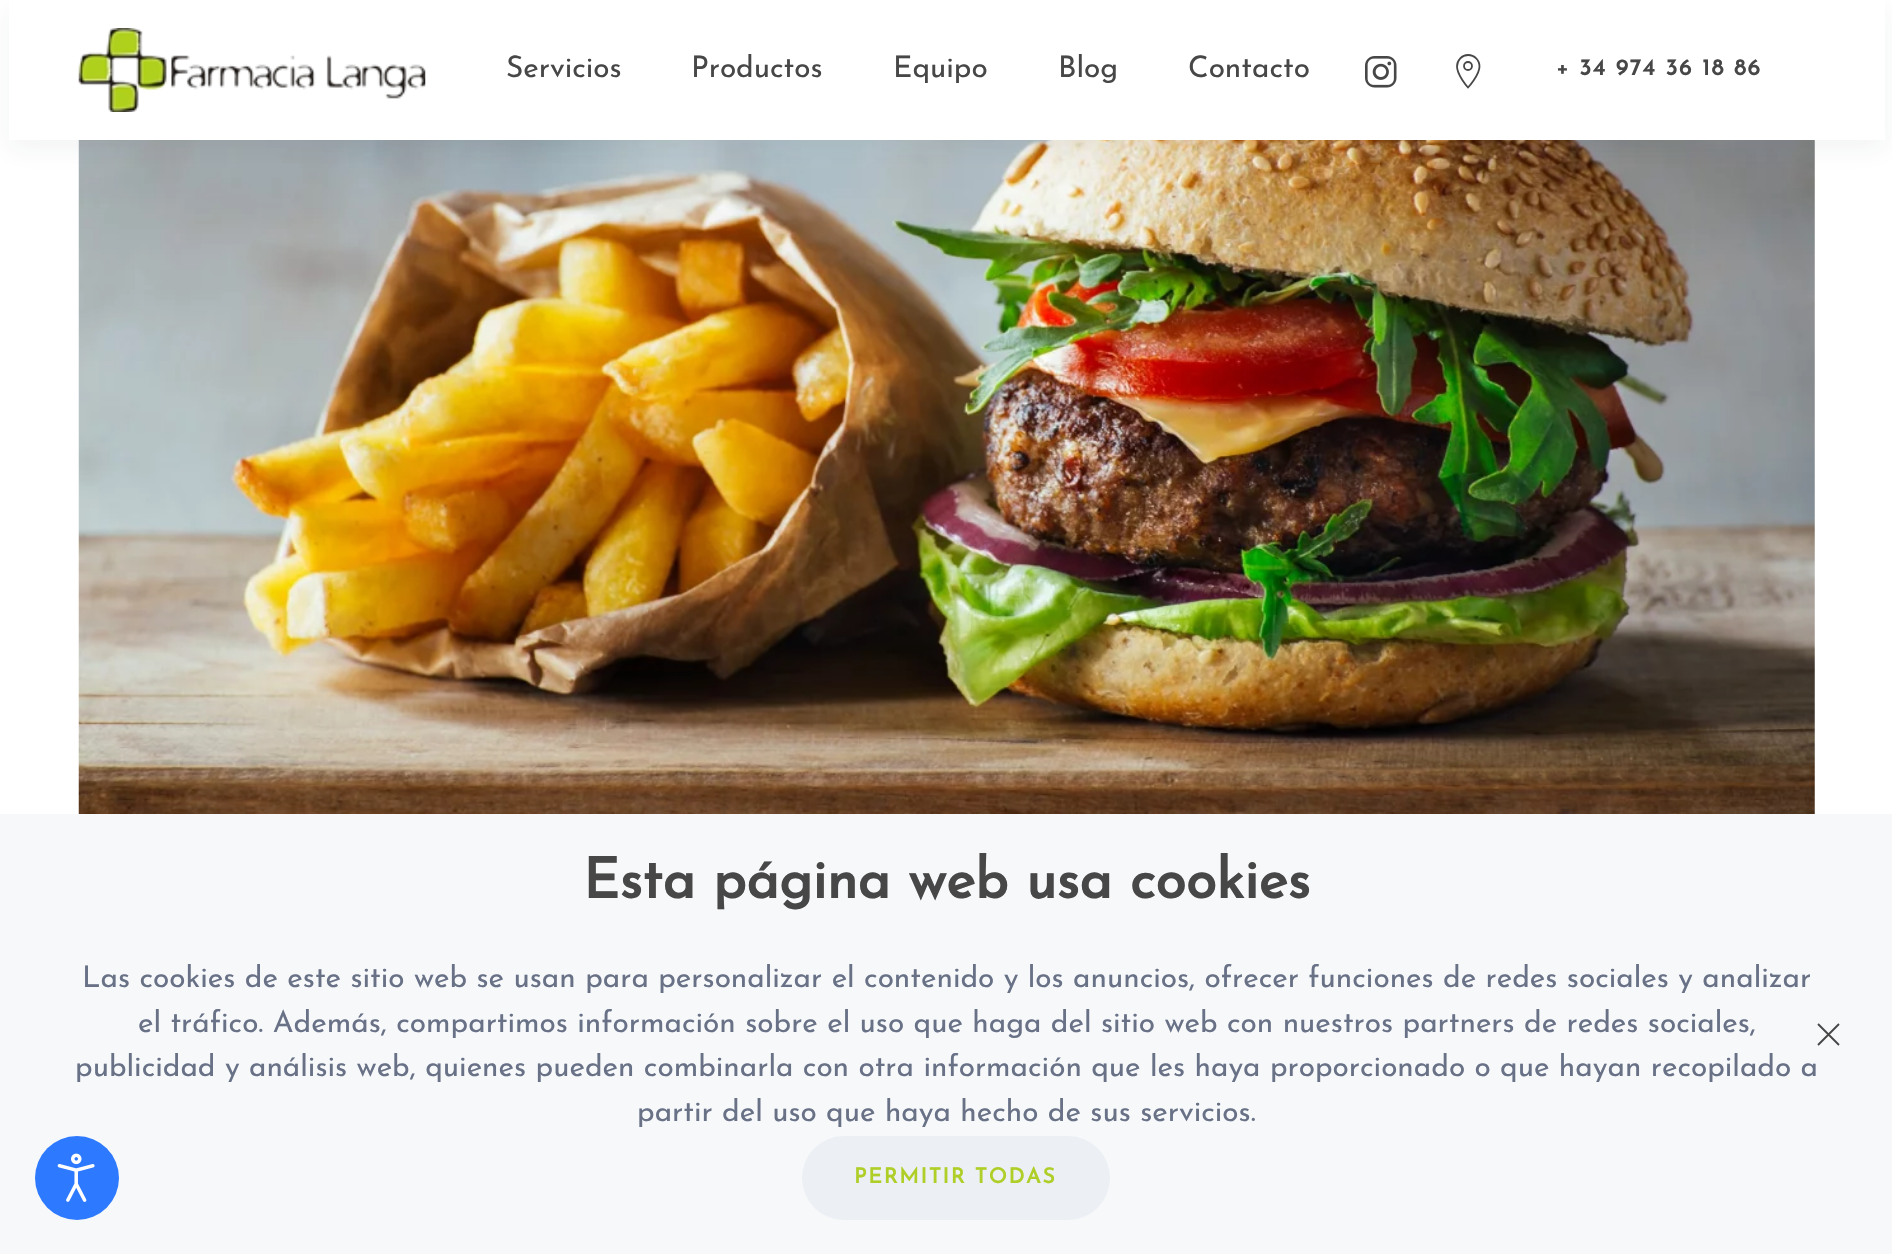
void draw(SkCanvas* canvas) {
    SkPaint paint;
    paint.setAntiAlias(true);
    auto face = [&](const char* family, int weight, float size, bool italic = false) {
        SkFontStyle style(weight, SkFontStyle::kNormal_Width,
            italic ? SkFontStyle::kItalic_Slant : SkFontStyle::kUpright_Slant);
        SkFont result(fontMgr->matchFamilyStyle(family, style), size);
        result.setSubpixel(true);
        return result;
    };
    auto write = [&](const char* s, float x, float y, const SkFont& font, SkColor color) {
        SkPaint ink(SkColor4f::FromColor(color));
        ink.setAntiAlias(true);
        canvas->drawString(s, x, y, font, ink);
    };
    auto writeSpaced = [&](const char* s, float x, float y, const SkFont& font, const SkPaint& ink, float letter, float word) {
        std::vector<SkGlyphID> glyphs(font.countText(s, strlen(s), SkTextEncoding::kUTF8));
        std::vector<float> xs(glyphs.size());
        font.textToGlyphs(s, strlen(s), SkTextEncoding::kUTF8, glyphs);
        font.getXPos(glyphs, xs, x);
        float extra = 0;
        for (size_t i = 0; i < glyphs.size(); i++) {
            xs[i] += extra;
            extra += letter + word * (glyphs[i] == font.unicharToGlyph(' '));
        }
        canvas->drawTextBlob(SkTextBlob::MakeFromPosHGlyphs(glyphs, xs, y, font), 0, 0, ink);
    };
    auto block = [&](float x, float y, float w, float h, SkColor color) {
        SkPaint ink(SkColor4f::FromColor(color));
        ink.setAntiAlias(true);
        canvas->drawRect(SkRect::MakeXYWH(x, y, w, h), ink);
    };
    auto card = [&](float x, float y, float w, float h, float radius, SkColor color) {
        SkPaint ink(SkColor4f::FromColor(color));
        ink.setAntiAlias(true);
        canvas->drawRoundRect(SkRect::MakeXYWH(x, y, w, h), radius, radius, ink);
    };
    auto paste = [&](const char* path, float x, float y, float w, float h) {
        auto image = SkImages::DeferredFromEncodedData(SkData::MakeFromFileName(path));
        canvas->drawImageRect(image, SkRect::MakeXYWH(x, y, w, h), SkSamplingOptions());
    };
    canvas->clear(SK_ColorWHITE);
    paste("pic3.png", 78, 140, 1737, 674);
    paint.setColor(SkColorSetARGB(15, 39, 44, 63));
    paint.setMaskFilter(SkMaskFilter::MakeBlur(kNormal_SkBlurStyle, 13));
    canvas->drawRect(SkRect::MakeXYWH(9, 9, 1876, 140), paint);
    paint.setMaskFilter(nullptr);
    block(9, 0, 1876, 140, SK_ColorWHITE);
    paste("pic1.png", 78, 28, 348, 84);
    auto kFont1 = face("Josefin Sans", 100, 29.75f);
    write("Servicios", 506, 77, kFont1, SkColorSetRGB(71, 71, 71));
    write("Productos", 691, 77, kFont1, SkColorSetRGB(71, 71, 71));
    write("Equipo", 893, 77, kFont1, SkColorSetRGB(71, 71, 71));
    write("Blog", 1058, 77, kFont1, SkColorSetRGB(71, 71, 71));
    write("Contacto", 1188, 77, kFont1, SkColorSetRGB(71, 71, 71));
    paste("pic2.png", 1365, 56, 32, 32);
    paint.setStyle(SkPaint::kStroke_Style);
    paint.setStrokeWidth(1.8f);
    paint.setColor(SkColorSetRGB(71, 71, 71));
    canvas->drawPath(SkPathBuilder().moveTo(1468, 55).cubicTo(1462, 55, 1457, 60, 1457, 66.5f).cubicTo(1457, 75, 1468, 87.5f, 1468, 87.5f).cubicTo(1468, 87.5f, 1479.5f, 75, 1479.5f, 66.5f).cubicTo(1479.5f, 60, 1474.5f, 55, 1468, 55).close().detach(), paint);
    canvas->drawCircle(1468, 66, 4, paint);
    auto kFont2 = face("Josefin Sans", 700, 22.75f);
    paint.setStyle(SkPaint::kFill_Style);
    writeSpaced("+ 34 974 36 18 86", 1556, 75, kFont2, paint, 1.75f, 0);
    block(0, 814, 1892, 440, SkColorSetRGB(246, 248, 250));
    auto kFont3 = face("Josefin Sans", 700, 56);
    write("Esta página web usa cookies", 583, 898, kFont3, SkColorSetRGB(71, 71, 71));
    write("Las cookies de este sitio web se usan para personalizar el contenido y los anuncios, ofrecer funciones de redes sociales y analizar", 82, 987, kFont1, SkColorSetRGB(104, 113, 134));
    write("el tráfico. Además, compartimos información sobre el uso que haga del sitio web con nuestros partners de redes sociales,", 138, 1032, kFont1, SkColorSetRGB(104, 113, 134));
    write("publicidad y análisis web, quienes pueden combinarla con otra información que les haya proporcionado o que hayan recopilado a", 75, 1076, kFont1, SkColorSetRGB(104, 113, 134));
    write("partir del uso que haya hecho de sus servicios.", 637, 1121, kFont1, SkColorSetRGB(104, 113, 134));
    paint.setStyle(SkPaint::kStroke_Style);
    paint.setStrokeWidth(1.9f);
    canvas->drawPath(SkPathBuilder().moveTo(1818, 1024).lineTo(1839, 1045).moveTo(1839, 1024).lineTo(1818, 1045).detach(), paint);
    card(802, 1136, 308, 84, 42, SkColorSetRGB(236, 240, 245));
    auto kFont4 = face("Josefin Sans", 700, 21);
    paint.setStyle(SkPaint::kFill_Style);
    paint.setColor(SkColorSetRGB(175, 206, 40));
    writeSpaced("PERMITIR TODAS", 854, 1183, kFont4, paint, 1.75f, 0);
    paint.setColor(SkColorSetRGB(45, 121, 255));
    canvas->drawCircle(77, 1178, 42, paint);
    paste("pic4.png", 57, 1153, 38, 49);
}
